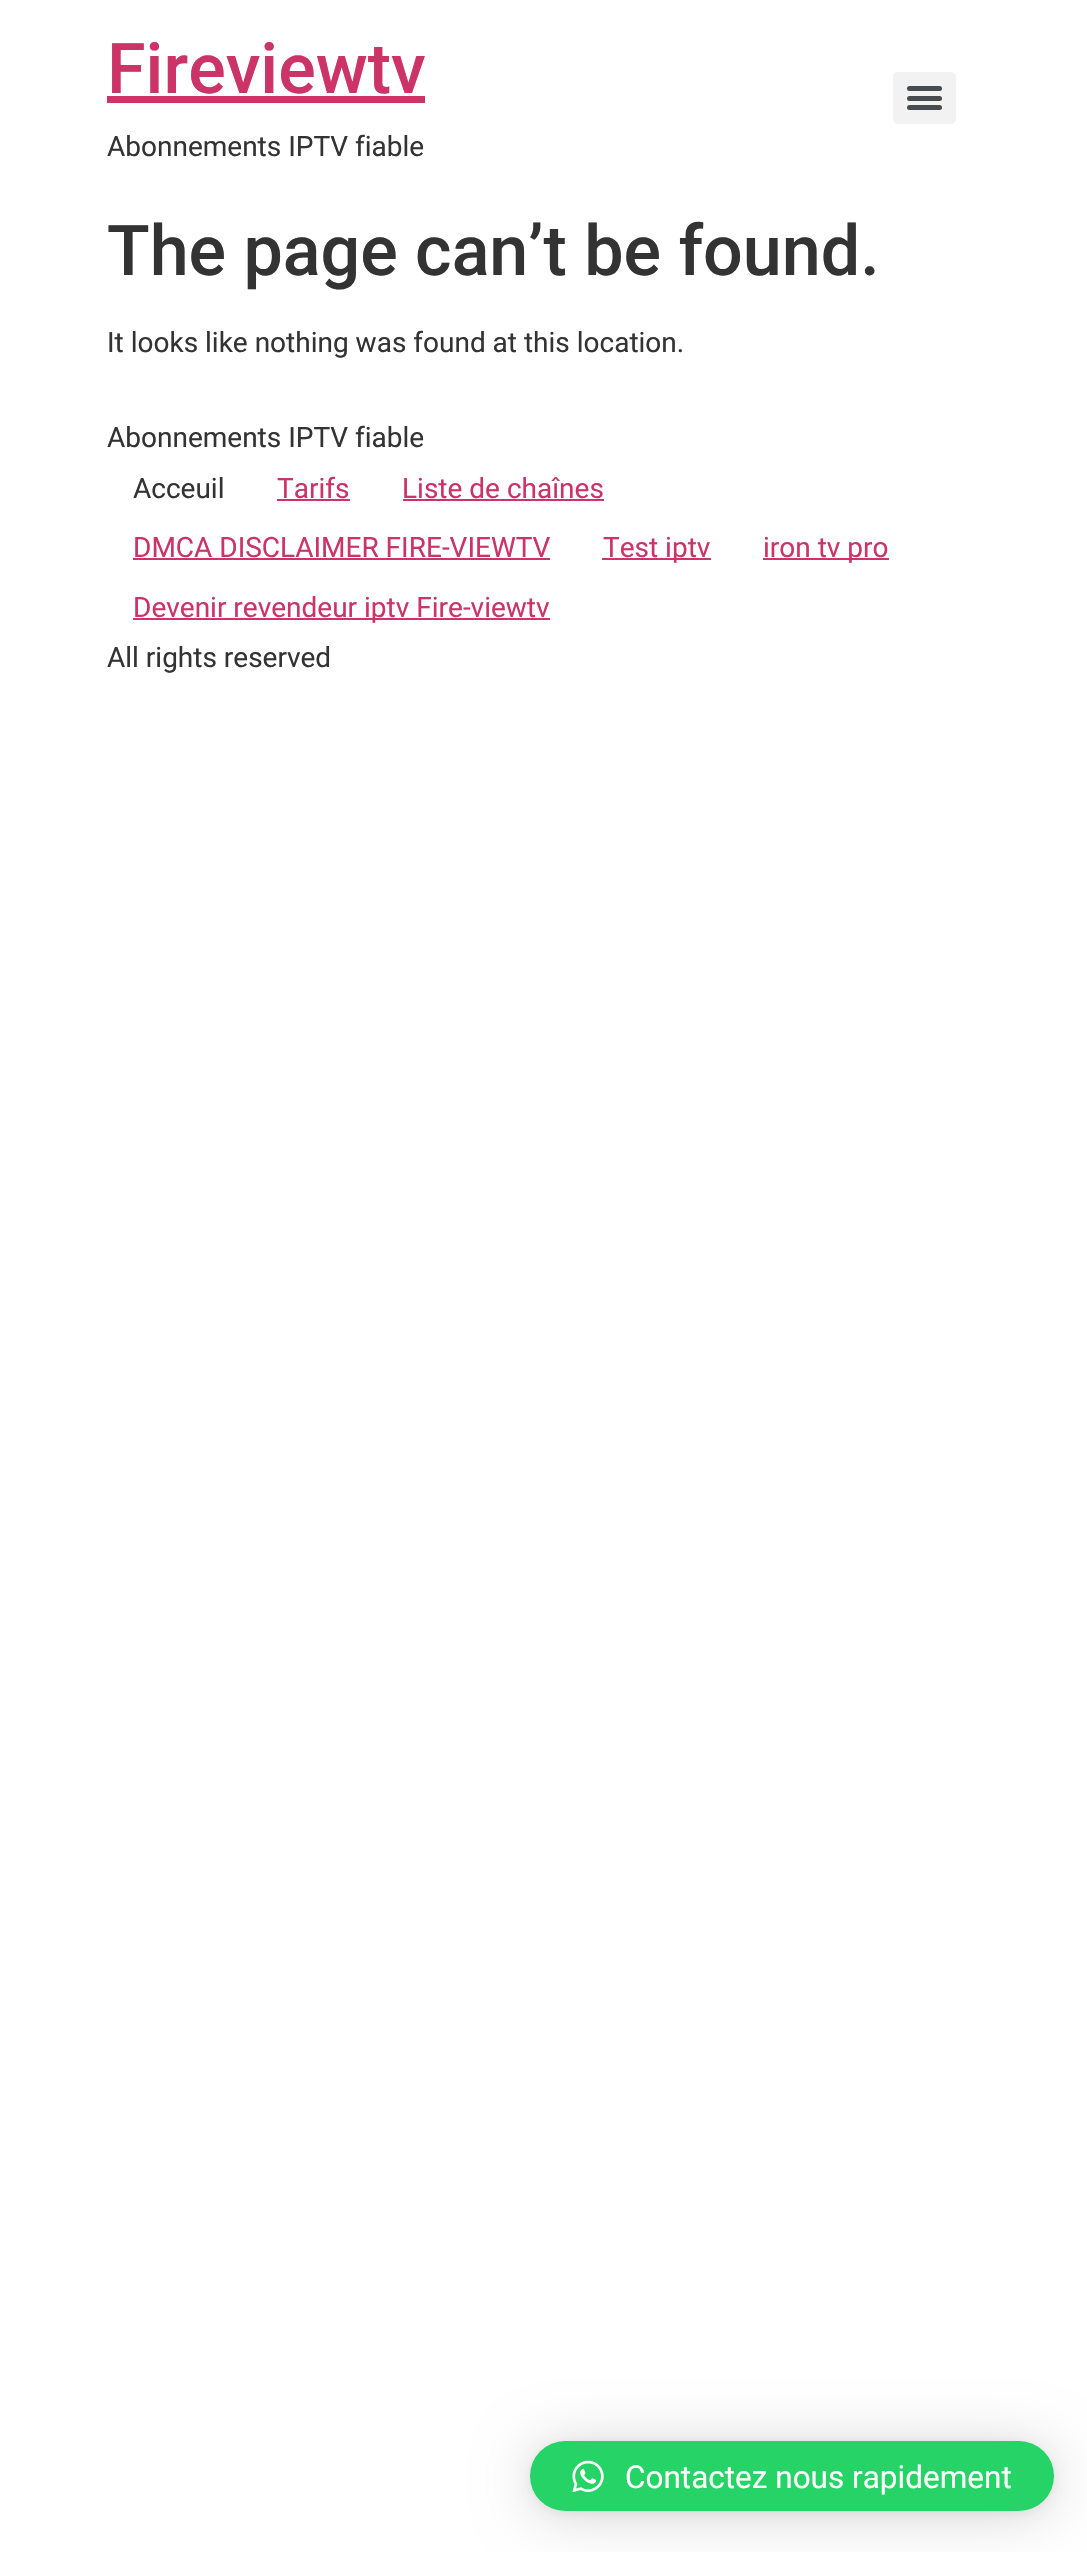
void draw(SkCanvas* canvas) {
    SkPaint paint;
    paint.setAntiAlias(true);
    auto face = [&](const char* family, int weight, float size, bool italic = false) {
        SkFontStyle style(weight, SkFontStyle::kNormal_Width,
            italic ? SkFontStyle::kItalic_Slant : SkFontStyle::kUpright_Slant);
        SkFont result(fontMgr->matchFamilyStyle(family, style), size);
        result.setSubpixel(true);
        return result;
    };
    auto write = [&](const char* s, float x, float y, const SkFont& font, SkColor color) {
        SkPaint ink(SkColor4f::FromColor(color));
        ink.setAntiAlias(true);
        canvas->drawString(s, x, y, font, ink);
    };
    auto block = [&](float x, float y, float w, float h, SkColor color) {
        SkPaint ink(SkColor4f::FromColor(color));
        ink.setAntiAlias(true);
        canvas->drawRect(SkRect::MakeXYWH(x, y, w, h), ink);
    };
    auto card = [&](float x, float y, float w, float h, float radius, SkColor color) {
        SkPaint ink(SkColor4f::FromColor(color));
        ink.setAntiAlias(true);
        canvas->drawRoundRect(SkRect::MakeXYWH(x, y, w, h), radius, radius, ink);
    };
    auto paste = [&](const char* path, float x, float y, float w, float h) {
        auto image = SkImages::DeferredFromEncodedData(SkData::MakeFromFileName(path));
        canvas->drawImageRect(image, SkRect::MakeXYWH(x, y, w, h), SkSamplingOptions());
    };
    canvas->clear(SK_ColorWHITE);
    auto kFont1 = face("Roboto", 500, 70);
    write("Fireviewtv", 107, 93, kFont1, SkColorSetRGB(204, 51, 102));
    block(107, 96, 318, 7, SkColorSetRGB(204, 51, 102));
    auto kFont2 = face("Roboto", 400, 28);
    write("Abonnements IPTV fiable", 107, 156, kFont2, SkColorSetRGB(51, 51, 51));
    card(893, 72, 63, 52, 5, SkColorSetRGB(242, 242, 242));
    card(907, 96, 35, 5, 2.5f, SkColorSetRGB(73, 76, 79));
    card(907, 86, 35, 5, 2.5f, SkColorSetRGB(73, 76, 79));
    card(907, 105, 35, 5, 2.5f, SkColorSetRGB(73, 76, 79));
    write("The page can’t be found.", 107, 275, kFont1, SkColorSetRGB(51, 51, 51));
    write("It looks like nothing was found at this location.", 107, 352, kFont2, SkColorSetRGB(51, 51, 51));
    write("Abonnements IPTV fiable", 107, 447, kFont2, SkColorSetRGB(51, 51, 51));
    write("Acceuil", 133, 498, kFont2, SkColorSetRGB(51, 51, 51));
    write("Tarifs", 277, 498, kFont2, SkColorSetRGB(204, 51, 102));
    block(277, 499, 73, 2, SkColorSetRGB(204, 51, 102));
    write("Liste de chaînes", 402, 498, kFont2, SkColorSetRGB(204, 51, 102));
    block(403, 499, 201, 2, SkColorSetRGB(204, 51, 102));
    write("DMCA DISCLAIMER FIRE-VIEWTV", 133, 557, kFont2, SkColorSetRGB(204, 51, 102));
    block(133, 558, 417, 2, SkColorSetRGB(204, 51, 102));
    block(602, 558, 109, 2, SkColorSetRGB(204, 51, 102));
    write("Test iptv", 603, 557, kFont2, SkColorSetRGB(204, 51, 102));
    block(763, 558, 126, 2, SkColorSetRGB(204, 51, 102));
    write("iron tv pro", 763, 557, kFont2, SkColorSetRGB(204, 51, 102));
    block(133, 618, 417, 2, SkColorSetRGB(204, 51, 102));
    write("Devenir revendeur iptv Fire-viewtv", 133, 617, kFont2, SkColorSetRGB(204, 51, 102));
    write("All rights reserved", 107, 667, kFont2, SkColorSetRGB(51, 51, 51));
    paint.setColor(SkColorSetARGB(41, 0, 0, 0));
    paint.setMaskFilter(SkMaskFilter::MakeBlur(kNormal_SkBlurStyle, 28));
    canvas->drawRoundRect(SkRect::MakeXYWH(530, 2445, 524, 70), 35, 35, paint);
    paint.setMaskFilter(nullptr);
    paint.setColor(SkColorSetARGB(15, 0, 0, 0));
    paint.setMaskFilter(SkMaskFilter::MakeBlur(kNormal_SkBlurStyle, 5));
    canvas->drawRoundRect(SkRect::MakeXYWH(530, 2443, 524, 70), 35, 35, paint);
    paint.setMaskFilter(nullptr);
    card(530, 2441, 524, 70, 35, SkColorSetRGB(37, 211, 102));
    paste("pic1.png", 572, 2460, 32, 33);
    auto kFont3 = face("Roboto", 400, 31.5f);
    write("Contactez nous rapidement", 625, 2488, kFont3, SK_ColorWHITE);
}
